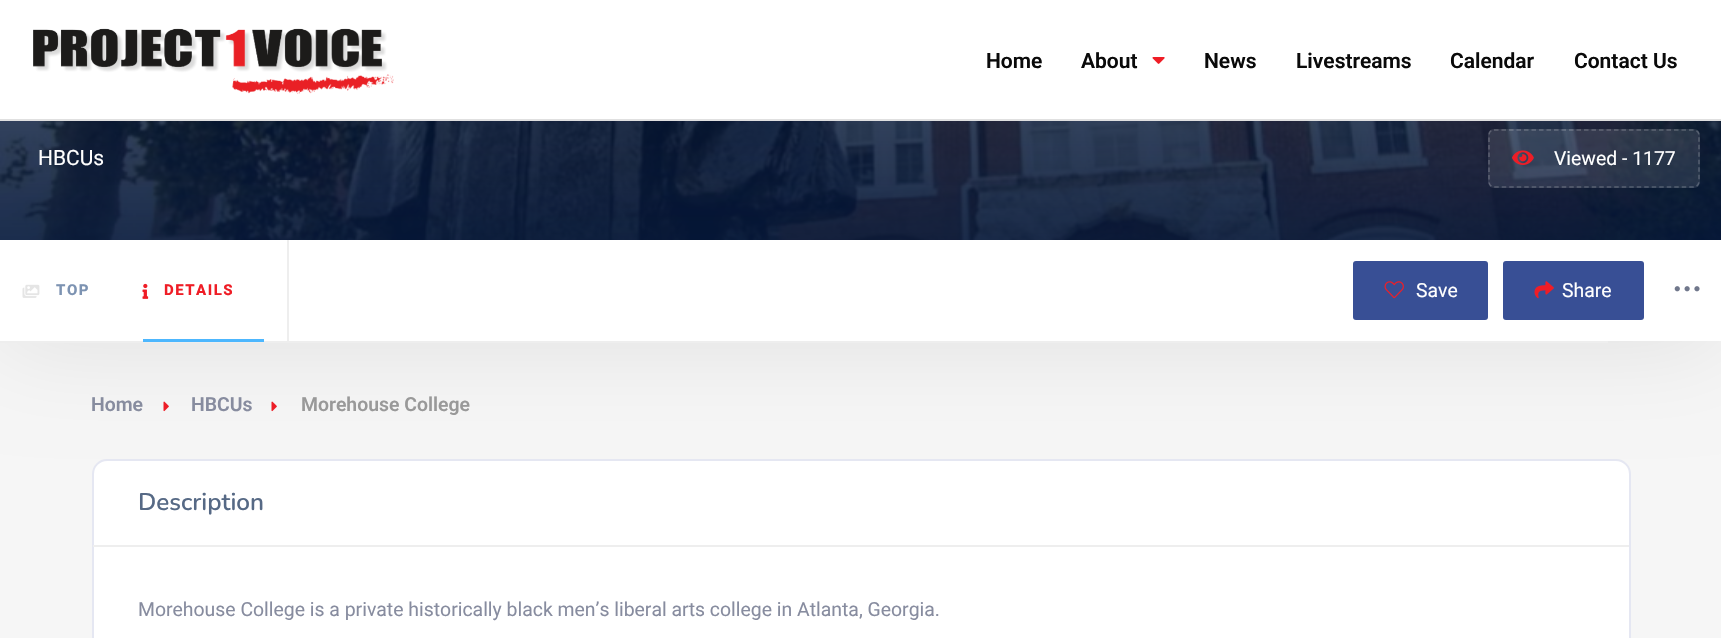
void draw(SkCanvas* canvas) {
    SkPaint paint;
    paint.setAntiAlias(true);
    auto face = [&](const char* family, int weight, float size, bool italic = false) {
        SkFontStyle style(weight, SkFontStyle::kNormal_Width,
            italic ? SkFontStyle::kItalic_Slant : SkFontStyle::kUpright_Slant);
        SkFont result(fontMgr->matchFamilyStyle(family, style), size);
        result.setSubpixel(true);
        return result;
    };
    auto write = [&](const char* s, float x, float y, const SkFont& font, SkColor color) {
        SkPaint ink(SkColor4f::FromColor(color));
        ink.setAntiAlias(true);
        canvas->drawString(s, x, y, font, ink);
    };
    auto writeSpaced = [&](const char* s, float x, float y, const SkFont& font, const SkPaint& ink, float letter, float word) {
        std::vector<SkGlyphID> glyphs(font.countText(s, strlen(s), SkTextEncoding::kUTF8));
        std::vector<float> xs(glyphs.size());
        font.textToGlyphs(s, strlen(s), SkTextEncoding::kUTF8, glyphs);
        font.getXPos(glyphs, xs, x);
        float extra = 0;
        for (size_t i = 0; i < glyphs.size(); i++) {
            xs[i] += extra;
            extra += letter + word * (glyphs[i] == font.unicharToGlyph(' '));
        }
        canvas->drawTextBlob(SkTextBlob::MakeFromPosHGlyphs(glyphs, xs, y, font), 0, 0, ink);
    };
    auto block = [&](float x, float y, float w, float h, SkColor color) {
        SkPaint ink(SkColor4f::FromColor(color));
        ink.setAntiAlias(true);
        canvas->drawRect(SkRect::MakeXYWH(x, y, w, h), ink);
    };
    auto card = [&](float x, float y, float w, float h, float radius, SkColor color) {
        SkPaint ink(SkColor4f::FromColor(color));
        ink.setAntiAlias(true);
        canvas->drawRoundRect(SkRect::MakeXYWH(x, y, w, h), radius, radius, ink);
    };
    auto paste = [&](const char* path, float x, float y, float w, float h) {
        auto image = SkImages::DeferredFromEncodedData(SkData::MakeFromFileName(path));
        canvas->drawImageRect(image, SkRect::MakeXYWH(x, y, w, h), SkSamplingOptions());
    };
    canvas->clear(SkColorSetRGB(246, 246, 246));
    paste("pic3.png", 0, 121, 1721, 119);
    card(1488, 129, 212, 59, 6, SkColorSetARGB(28, 255, 255, 255));
    paint.setStyle(SkPaint::kStroke_Style);
    paint.setStrokeWidth(1.5f);
    paint.setColor(SkColorSetARGB(54, 255, 255, 255));
    paint.setPathEffect(SkDashPathEffect::Make({{4.5f, 3}}, 0));
    canvas->drawPath(SkPathBuilder().moveTo(1494, 130).lineTo(1693.5f, 130).cubicTo(1696.5f, 130, 1699, 132, 1699, 135).lineTo(1699, 181.5f).cubicTo(1699, 184.5f, 1696.5f, 187, 1693.5f, 187).lineTo(1494, 187).cubicTo(1491, 187, 1489, 184.5f, 1489, 181.5f).lineTo(1489, 135).cubicTo(1489, 132, 1491, 130, 1494, 130).close().detach(), paint);
    paint.setPathEffect(nullptr);
    paste("pic4.png", 1512, 150, 22, 15);
    paste("pic10.png", 163, 401, 6, 11);
    paste("pic10.png", 271, 401, 6, 11);
    paint.setStyle(SkPaint::kFill_Style);
    paint.setColor(SK_ColorWHITE);
    canvas->drawRoundRect(SkRect::MakeXYWH(93, 460, 1537, 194), 14, 14, paint);
    paint.setStyle(SkPaint::kStroke_Style);
    paint.setStrokeWidth(2);
    paint.setColor(SkColorSetRGB(229, 231, 242));
    canvas->drawRoundRect(SkRect::MakeXYWH(93, 460, 1537, 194), 14, 14, paint);
    paint.setStyle(SkPaint::kFill_Style);
    paint.setColor(SkColorSetARGB(23, 0, 0, 0));
    paint.setMaskFilter(SkMaskFilter::MakeBlur(kNormal_SkBlurStyle, 49));
    canvas->drawRect(SkRect::MakeXYWH(0, 240, 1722, 102), paint);
    paint.setMaskFilter(nullptr);
    block(0, 0, 1721, 119, SK_ColorWHITE);
    block(0, 119, 1721, 2, SkColorSetRGB(224, 224, 224));
    paste("pic1.png", 33, 28, 361, 66);
    auto kFont1 = face("Roboto", 600, 21);
    write("Home", 986, 68, kFont1, SkColorSetRGB(10, 10, 10));
    write("About", 1081, 68, kFont1, SkColorSetRGB(10, 10, 10));
    paste("pic2.png", 1152, 57, 13, 7);
    write("News", 1204, 68, kFont1, SkColorSetRGB(10, 10, 10));
    write("Livestreams", 1296, 68, kFont1, SkColorSetRGB(10, 10, 10));
    write("Calendar", 1450, 68, kFont1, SkColorSetRGB(10, 10, 10));
    write("Contact Us", 1574, 68, kFont1, SkColorSetRGB(10, 10, 10));
    auto kFont2 = face("Roboto", 400, 21);
    write("HBCUs", 38, 165, kFont2, SK_ColorWHITE);
    auto kFont3 = face("Roboto", 400, 19.4f);
    write("Viewed - 1177", 1554, 165, kFont3, SK_ColorWHITE);
    block(0, 240, 1721, 101, SK_ColorWHITE);
    block(0, 341, 1608, 2, SkColorSetRGB(238, 238, 238));
    block(287, 240, 2, 101, SkColorSetRGB(238, 238, 238));
    paste("pic5.png", 22, 284, 18, 14);
    auto kFont4 = face("Roboto", 800, 15);
    paint.setColor(SkColorSetRGB(125, 147, 178));
    writeSpaced("TOP", 56, 295, kFont4, paint, 1.5f, 0);
    paste("pic6.png", 142, 283, 7, 16);
    paint.setColor(SkColorSetRGB(239, 29, 38));
    writeSpaced("DETAILS", 164, 295, kFont4, paint, 1.5f, 0);
    block(143, 339, 121, 3, SkColorSetRGB(77, 183, 254));
    card(1353, 261, 135, 59, 3, SkColorSetRGB(56, 79, 149));
    paste("pic7.png", 1384, 281, 20, 18);
    write("Save", 1416, 297, kFont3, SK_ColorWHITE);
    card(1503, 261, 141, 59, 3, SkColorSetRGB(56, 79, 149));
    paste("pic8.png", 1534, 281, 20, 18);
    write("Share", 1562, 297, kFont3, SK_ColorWHITE);
    paste("pic9.png", 1674, 286, 26, 6);
    auto kFont5 = face("Roboto", 600, 19.4f);
    write("Home", 91, 411, kFont5, SkColorSetRGB(135, 140, 159));
    write("HBCUs", 191, 411, kFont5, SkColorSetRGB(135, 140, 159));
    write("Morehouse College", 301, 411, kFont5, SkColorSetRGB(153, 153, 153));
    block(93, 545, 1536, 2, SkColorSetRGB(238, 238, 238));
    auto kFont6 = face("Nunito", 600, 24.25f);
    write("Description", 138, 510, kFont6, SkColorSetRGB(86, 105, 133));
    write("Morehouse College is a private historically black men’s liberal arts college in Atlanta, Georgia.", 138, 616, kFont3, SkColorSetRGB(135, 140, 159));
}
